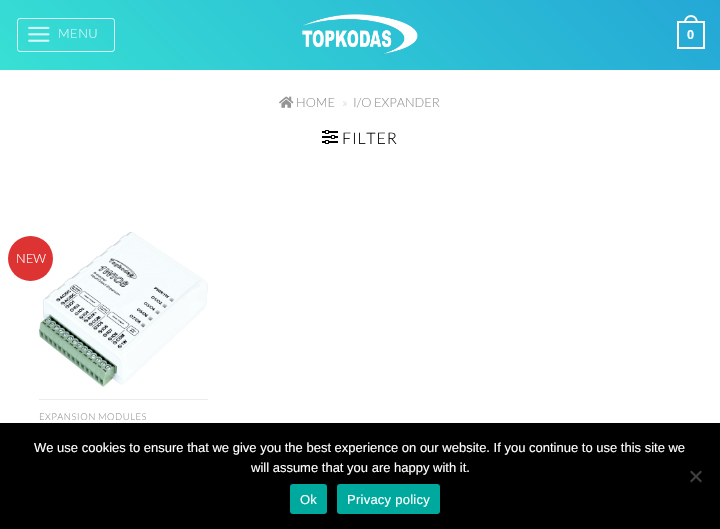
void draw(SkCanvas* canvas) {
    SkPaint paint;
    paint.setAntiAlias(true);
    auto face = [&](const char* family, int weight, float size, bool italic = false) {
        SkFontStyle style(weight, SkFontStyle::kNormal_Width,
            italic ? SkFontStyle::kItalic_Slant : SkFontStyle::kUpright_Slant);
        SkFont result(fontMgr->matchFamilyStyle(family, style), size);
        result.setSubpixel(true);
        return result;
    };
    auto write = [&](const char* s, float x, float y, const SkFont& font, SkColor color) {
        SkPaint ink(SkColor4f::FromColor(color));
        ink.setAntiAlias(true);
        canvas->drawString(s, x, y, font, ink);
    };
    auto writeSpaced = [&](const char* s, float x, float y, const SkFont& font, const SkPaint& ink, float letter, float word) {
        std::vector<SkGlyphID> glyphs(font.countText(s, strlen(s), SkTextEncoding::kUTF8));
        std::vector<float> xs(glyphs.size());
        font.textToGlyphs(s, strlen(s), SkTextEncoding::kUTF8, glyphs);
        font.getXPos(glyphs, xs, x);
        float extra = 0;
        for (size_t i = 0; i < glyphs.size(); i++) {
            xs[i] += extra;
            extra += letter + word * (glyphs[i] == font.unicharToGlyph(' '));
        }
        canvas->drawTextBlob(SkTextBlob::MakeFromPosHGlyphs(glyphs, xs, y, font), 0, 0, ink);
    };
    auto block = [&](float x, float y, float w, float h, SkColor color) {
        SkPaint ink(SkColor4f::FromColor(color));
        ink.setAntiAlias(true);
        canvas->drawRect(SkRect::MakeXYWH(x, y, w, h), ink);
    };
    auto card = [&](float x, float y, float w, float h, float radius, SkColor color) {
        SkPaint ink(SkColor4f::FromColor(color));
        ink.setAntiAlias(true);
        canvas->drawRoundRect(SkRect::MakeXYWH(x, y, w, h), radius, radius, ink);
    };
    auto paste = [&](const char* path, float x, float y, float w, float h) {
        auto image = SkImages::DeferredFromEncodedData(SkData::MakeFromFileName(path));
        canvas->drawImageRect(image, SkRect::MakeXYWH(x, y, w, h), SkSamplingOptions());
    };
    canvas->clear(SK_ColorWHITE);
    {
        const SkColor colors[] = {SkColorSetRGB(55, 224, 212), SkColorSetRGB(36, 167, 214)};
        const float stops[] = {0, 1};
        const SkPoint ends[] = {{163, 233}, {558, -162}};
        paint.setShader(SkGradientShader::MakeLinear(ends, colors, stops, 2, SkTileMode::kClamp));
        paint.setAlpha(255);
    }
    canvas->drawRect(SkRect::MakeXYWH(0, 0, 720, 70), paint);
    paint.setStyle(SkPaint::kStroke_Style);
    paint.setStrokeWidth(1);
    paint.setShader(nullptr);
    paint.setColor(SkColorSetARGB(204, 255, 255, 255));
    canvas->drawRoundRect(SkRect::MakeXYWH(17.5f, 18.5f, 97, 33), 2.5f, 2.5f, paint);
    paste("pic1.png", 28, 26, 22, 16);
    auto kFont1 = face("Lato", 300, 12.75f);
    paint.setStyle(SkPaint::kFill_Style);
    paint.setColor(SkColorSetRGB(214, 247, 246));
    writeSpaced("MENU", 58, 38, kFont1, paint, 0.5f, 0);
    paste("pic2.png", 302, 14, 116, 40);
    paint.setStyle(SkPaint::kStroke_Style);
    paint.setStrokeWidth(2);
    paint.setColor(SK_ColorWHITE);
    canvas->drawRect(SkRect::MakeXYWH(678, 22, 26, 26), paint);
    paint.setStyle(SkPaint::kFill_Style);
    canvas->drawPath(SkPathBuilder(SkPathFillType::kEvenOdd).moveTo(691, 15).cubicTo(695.5f, 15, 698, 19, 698, 23).lineTo(684, 23).cubicTo(684, 19, 686.5f, 15, 691, 15).close().moveTo(691, 17).cubicTo(694.5f, 17, 696, 20, 696, 23).lineTo(686, 23).cubicTo(686, 20, 687.5f, 17, 691, 17).close().detach(), paint);
    auto kFont2 = face("Liberation Sans", 700, 12.75f);
    write("0", 687, 39, kFont2, SK_ColorWHITE);
    paste("pic3.png", 279, 96, 15, 12);
    write("HOME", 296, 107, kFont1, SkColorSetRGB(148, 148, 148));
    write("»", 342, 107, kFont1, SkColorSetRGB(217, 217, 217));
    write("I/O EXPANDER", 353, 107, kFont1, SkColorSetRGB(148, 148, 148));
    paste("pic4.png", 322, 130, 16, 14);
    auto kFont3 = face("Lato", 300, 16);
    paint.setColor(SK_ColorBLACK);
    writeSpaced("FILTER", 342, 144, kFont3, paint, 0.75f, 0);
    paste("pic5.png", 39, 232, 169, 155);
    paint.setColor(SkColorSetRGB(221, 51, 51));
    canvas->drawCircle(30.5f, 258.5f, 22.5f, paint);
    write("NEW", 16, 263, kFont1, SK_ColorWHITE);
    block(39, 399, 169, 1, SkColorSetRGB(236, 236, 236));
    auto kFont4 = face("Lato", 300, 9.4f);
    paint.setColor(SkColorSetRGB(148, 148, 148));
    writeSpaced("EXPANSION MODULES", 39, 420, kFont4, paint, 0.5f, 0);
    block(0, 423, 720, 106, SK_ColorBLACK);
    auto kFont5 = face("Liberation Sans", 400, 13);
    write("We use cookies to ensure that we give you the best experience on our website. If you continue to use this site we", 34, 452, kFont5, SK_ColorWHITE);
    write("will assume that you are happy with it.", 251, 472, kFont5, SK_ColorWHITE);
    paint.setColor(SkColorSetRGB(64, 64, 64));
    canvas->drawPath(SkPathBuilder().moveTo(700.5f, 470.5f).lineTo(702, 472).lineTo(691.5f, 482.5f).lineTo(690, 481).close().detach(), paint);
    canvas->drawPath(SkPathBuilder().moveTo(690, 472).lineTo(691.5f, 470.5f).lineTo(702, 481).lineTo(700.5f, 482.5f).close().detach(), paint);
    card(290, 484, 37, 30, 3, SkColorSetRGB(0, 169, 157));
    paint.setColor(SK_ColorWHITE);
    writeSpaced("Ok", 300, 504, kFont5, paint, 0.25f, 0);
    card(337, 484, 103, 30, 3, SkColorSetRGB(0, 169, 157));
    writeSpaced("Privacy policy", 347, 504, kFont5, paint, 0.25f, 0);
}
